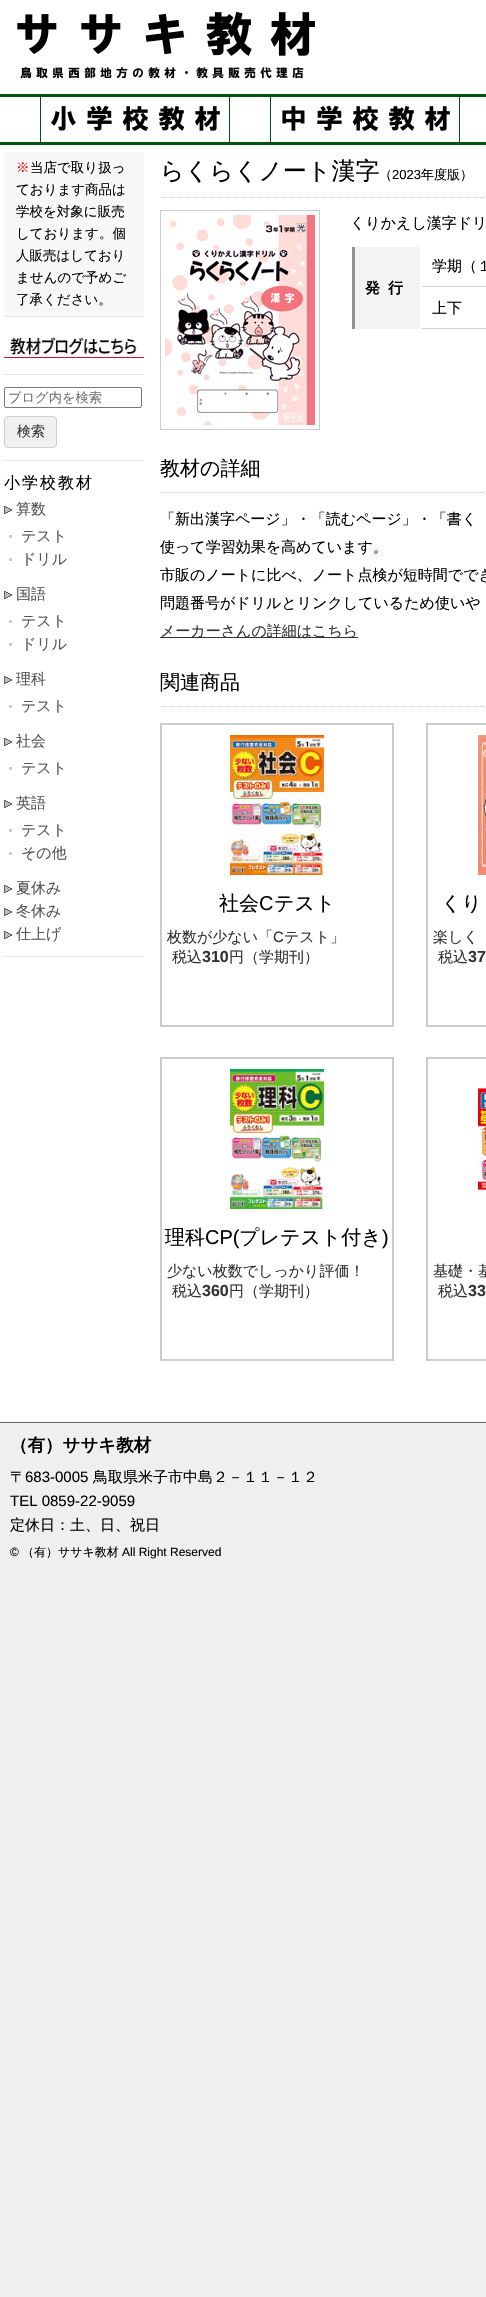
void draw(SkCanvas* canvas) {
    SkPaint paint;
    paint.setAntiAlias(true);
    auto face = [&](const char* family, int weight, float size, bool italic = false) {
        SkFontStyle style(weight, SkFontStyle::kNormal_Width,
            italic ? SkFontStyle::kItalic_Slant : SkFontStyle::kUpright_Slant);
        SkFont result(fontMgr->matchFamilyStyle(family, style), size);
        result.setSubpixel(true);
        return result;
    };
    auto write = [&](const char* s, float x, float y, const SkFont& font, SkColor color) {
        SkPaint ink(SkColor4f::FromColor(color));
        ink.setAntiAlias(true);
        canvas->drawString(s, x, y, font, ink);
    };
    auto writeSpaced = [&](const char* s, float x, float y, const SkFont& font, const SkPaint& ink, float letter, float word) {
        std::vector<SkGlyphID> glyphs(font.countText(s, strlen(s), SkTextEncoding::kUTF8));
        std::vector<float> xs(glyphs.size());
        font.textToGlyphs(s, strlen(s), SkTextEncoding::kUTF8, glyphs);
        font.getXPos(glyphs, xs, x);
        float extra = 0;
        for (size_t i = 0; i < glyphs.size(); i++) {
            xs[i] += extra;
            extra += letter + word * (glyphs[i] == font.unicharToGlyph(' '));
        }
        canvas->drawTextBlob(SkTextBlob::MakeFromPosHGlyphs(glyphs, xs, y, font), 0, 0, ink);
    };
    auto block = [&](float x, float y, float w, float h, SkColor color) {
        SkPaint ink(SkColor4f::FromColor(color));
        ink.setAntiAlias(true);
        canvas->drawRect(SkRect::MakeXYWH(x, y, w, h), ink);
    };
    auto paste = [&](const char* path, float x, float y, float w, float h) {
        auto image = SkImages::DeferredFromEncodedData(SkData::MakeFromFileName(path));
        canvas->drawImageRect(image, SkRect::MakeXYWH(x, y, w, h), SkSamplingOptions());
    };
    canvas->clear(SkColorSetRGB(239, 239, 239));
    block(0, 0, 486, 1422, SK_ColorWHITE);
    paste("pic1.png", 17, 11, 298, 68);
    block(0, 94, 486, 3, SkColorSetRGB(0, 85, 14));
    block(0, 142, 486, 3, SkColorSetRGB(0, 85, 14));
    block(229, 97, 1, 45, SkColorSetRGB(0, 85, 14));
    block(40, 97, 1, 45, SkColorSetRGB(0, 85, 14));
    paste("pic2.png", 51, 105, 169, 26);
    block(459, 97, 1, 45, SkColorSetRGB(0, 85, 14));
    block(270, 97, 1, 45, SkColorSetRGB(0, 85, 14));
    paste("pic3.png", 282, 105, 168, 26);
    block(4, 152, 140, 164, SkColorSetRGB(247, 247, 247));
    block(4, 316, 140, 1, SkColorSetRGB(230, 230, 230));
    auto kFont1 = face("WenQuanYi Zen Hei", 500, 13.5f);
    write("※", 16, 172, kFont1, SkColorSetRGB(255, 0, 0));
    write("当店で取り扱っ", 30, 172, kFont1, SK_ColorBLACK);
    write("ております商品は", 16, 194, kFont1, SK_ColorBLACK);
    write("学校を対象に販売", 16, 216, kFont1, SK_ColorBLACK);
    write("しております。個", 16, 238, kFont1, SK_ColorBLACK);
    write("人販売はしており", 16, 260, kFont1, SK_ColorBLACK);
    write("ませんので予めご", 16, 282, kFont1, SK_ColorBLACK);
    write("了承ください。", 16, 304, kFont1, SK_ColorBLACK);
    block(4, 374, 140, 1, SkColorSetRGB(230, 230, 230));
    paste("pic4.png", 4, 337, 140, 21);
    block(4, 460, 140, 1, SkColorSetRGB(230, 230, 230));
    paint.setStyle(SkPaint::kStroke_Style);
    paint.setStrokeWidth(1);
    paint.setColor(SkColorSetRGB(118, 118, 118));
    canvas->drawRoundRect(SkRect::MakeXYWH(4.5f, 387.5f, 137, 20), 1.5f, 1.5f, paint);
    auto kFont2 = face("WenQuanYi Zen Hei", 500, 13.25f);
    write("ブログ内を検索", 8, 402, kFont2, SkColorSetRGB(117, 117, 117));
    paint.setStyle(SkPaint::kFill_Style);
    paint.setColor(SkColorSetRGB(240, 240, 240));
    canvas->drawRoundRect(SkRect::MakeXYWH(4.5f, 416.5f, 52, 31), 3.5f, 3.5f, paint);
    paint.setStyle(SkPaint::kStroke_Style);
    paint.setColor(SkColorSetRGB(204, 204, 204));
    canvas->drawRoundRect(SkRect::MakeXYWH(4.5f, 416.5f, 52, 31), 3.5f, 3.5f, paint);
    auto kFont3 = face("WenQuanYi Zen Hei", 500, 14);
    write("検索", 17, 436, kFont3, SkColorSetRGB(51, 51, 51));
    auto kFont4 = face("WenQuanYi Zen Hei", 500, 16);
    paint.setStyle(SkPaint::kFill_Style);
    paint.setColor(SK_ColorBLACK);
    writeSpaced("小学校教材", 4, 488, kFont4, paint, 2, 0);
    block(4, 956, 140, 1, SkColorSetRGB(230, 230, 230));
    paste("pic5.png", 4, 506, 8, 8);
    auto kFont5 = face("WenQuanYi Zen Hei", 500, 15);
    write("算数", 16, 514, kFont5, SkColorSetRGB(84, 84, 84));
    block(9, 535, 3, 3, SkColorSetRGB(205, 203, 203));
    write("テスト", 21, 541, kFont5, SkColorSetRGB(84, 84, 84));
    block(9, 558, 3, 3, SkColorSetRGB(205, 203, 203));
    write("ドリル", 21, 564, kFont5, SkColorSetRGB(84, 84, 84));
    paste("pic5.png", 4, 591, 8, 8);
    write("国語", 16, 599, kFont5, SkColorSetRGB(84, 84, 84));
    block(9, 620, 3, 3, SkColorSetRGB(205, 203, 203));
    write("テスト", 21, 626, kFont5, SkColorSetRGB(84, 84, 84));
    block(9, 643, 3, 3, SkColorSetRGB(205, 203, 203));
    write("ドリル", 21, 649, kFont5, SkColorSetRGB(84, 84, 84));
    paste("pic5.png", 4, 676, 8, 8);
    write("理科", 16, 684, kFont5, SkColorSetRGB(84, 84, 84));
    block(9, 705, 3, 3, SkColorSetRGB(205, 203, 203));
    write("テスト", 21, 711, kFont5, SkColorSetRGB(84, 84, 84));
    paste("pic5.png", 4, 738, 8, 8);
    write("社会", 16, 746, kFont5, SkColorSetRGB(84, 84, 84));
    block(9, 767, 3, 3, SkColorSetRGB(205, 203, 203));
    write("テスト", 21, 773, kFont5, SkColorSetRGB(84, 84, 84));
    paste("pic5.png", 4, 800, 8, 8);
    write("英語", 16, 808, kFont5, SkColorSetRGB(84, 84, 84));
    block(9, 829, 3, 3, SkColorSetRGB(205, 203, 203));
    write("テスト", 21, 835, kFont5, SkColorSetRGB(84, 84, 84));
    block(9, 852, 3, 3, SkColorSetRGB(205, 203, 203));
    write("その他", 21, 858, kFont5, SkColorSetRGB(84, 84, 84));
    paste("pic5.png", 4, 885, 8, 8);
    write("夏休み", 16, 893, kFont5, SkColorSetRGB(84, 84, 84));
    paste("pic5.png", 4, 908, 8, 8);
    write("冬休み", 16, 916, kFont5, SkColorSetRGB(84, 84, 84));
    paste("pic5.png", 4, 931, 8, 8);
    write("仕上げ", 16, 939, kFont5, SkColorSetRGB(84, 84, 84));
    paint.setStyle(SkPaint::kStroke_Style);
    paint.setColor(SkColorSetRGB(201, 201, 201));
    paint.setPathEffect(SkDashPathEffect::Make({{1, 1}}, 0));
    canvas->drawPath(SkPathBuilder().moveTo(160, 197.5f).lineTo(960, 197.5f).detach(), paint);
    paint.setPathEffect(nullptr);
    auto kFont6 = face("WenQuanYi Zen Hei", 500, 24);
    write("らくらくノート漢字", 160, 179, kFont6, SK_ColorBLACK);
    auto kFont7 = face("WenQuanYi Zen Hei", 500, 13);
    write("（", 379, 179, kFont7, SK_ColorBLACK);
    auto kFont8 = face("Liberation Sans", 400, 13);
    write("2023", 392, 179, kFont8, SK_ColorBLACK);
    write("年度版）", 421, 179, kFont7, SK_ColorBLACK);
    paint.setColor(SkColorSetRGB(204, 204, 204));
    canvas->drawRect(SkRect::MakeXYWH(160.5f, 210.5f, 159, 219), paint);
    paste("pic6.png", 165, 215, 150, 210);
    write("くりかえし漢字ドリ", 350, 228, kFont5, SK_ColorBLACK);
    block(422, 286, 64, 1, SkColorSetRGB(209, 209, 209));
    write("学期（１", 432, 271, kFont5, SK_ColorBLACK);
    block(355, 247, 65, 82, SkColorSetRGB(243, 243, 243));
    block(352, 247, 3, 82, SkColorSetRGB(146, 146, 146));
    auto kFont9 = face("WenQuanYi Zen Hei", 700, 15);
    paint.setStyle(SkPaint::kFill_Style);
    paint.setColor(SK_ColorBLACK);
    writeSpaced("発行", 365, 293, kFont9, paint, 8, 0);
    block(422, 328, 64, 1, SkColorSetRGB(209, 209, 209));
    write("上下", 432, 313, kFont5, SK_ColorBLACK);
    paint.setStyle(SkPaint::kStroke_Style);
    paint.setColor(SkColorSetRGB(201, 201, 201));
    paint.setPathEffect(SkDashPathEffect::Make({{1, 1}}, 0));
    canvas->drawPath(SkPathBuilder().moveTo(160, 492.5f).lineTo(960, 492.5f).detach(), paint);
    paint.setPathEffect(nullptr);
    auto kFont10 = face("WenQuanYi Zen Hei", 500, 20);
    write("教材の詳細", 160, 475, kFont10, SK_ColorBLACK);
    write("「新出漢字ページ」・「読むページ」・「書く", 160, 524, kFont5, SK_ColorBLACK);
    write("使って学習効果を高めています。", 160, 552, kFont5, SK_ColorBLACK);
    write("市販のノートに比べ、ノート点検が短時間ででき", 160, 580, kFont5, SK_ColorBLACK);
    write("問題番号がドリルとリンクしているため使いや", 160, 608, kFont5, SK_ColorBLACK);
    block(160, 637, 198, 1, SkColorSetRGB(51, 51, 51));
    write("メーカーさんの詳細はこちら", 160, 636, kFont5, SkColorSetRGB(51, 51, 51));
    paint.setPathEffect(SkDashPathEffect::Make({{1, 1}}, 0));
    canvas->drawPath(SkPathBuilder().moveTo(160, 706.5f).lineTo(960, 706.5f).detach(), paint);
    paint.setPathEffect(nullptr);
    write("関連商品", 160, 689, kFont10, SK_ColorBLACK);
    paint.setStrokeWidth(2);
    paint.setColor(SkColorSetRGB(204, 204, 204));
    canvas->drawRect(SkRect::MakeXYWH(161, 724, 232, 302), paint);
    paste("pic7.png", 225, 735, 104, 140);
    write("社会", 219, 910, kFont10, SK_ColorBLACK);
    auto kFont11 = face("Liberation Sans", 400, 20);
    write("C", 259, 910, kFont11, SK_ColorBLACK);
    write("テスト", 274, 910, kFont10, SK_ColorBLACK);
    write("枚数が少ない「", 167, 942, kFont5, SkColorSetRGB(51, 51, 51));
    auto kFont12 = face("Liberation Sans", 400, 15);
    write("C", 273, 942, kFont12, SkColorSetRGB(51, 51, 51));
    write("テスト」", 284, 942, kFont5, SkColorSetRGB(51, 51, 51));
    write("税込", 172, 962, kFont5, SkColorSetRGB(51, 51, 51));
    auto kFont13 = face("Liberation Sans", 700, 16);
    write("310", 202, 962, kFont13, SkColorSetRGB(51, 51, 51));
    write("円（学期刊）", 229, 962, kFont5, SkColorSetRGB(51, 51, 51));
    canvas->drawRect(SkRect::MakeXYWH(427, 724, 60, 302), paint);
    paste("pic8.png", 478, 735, 8, 140);
    write("くり", 441, 910, kFont10, SK_ColorBLACK);
    write("楽しく", 433, 942, kFont5, SkColorSetRGB(51, 51, 51));
    write("税込", 438, 962, kFont5, SkColorSetRGB(51, 51, 51));
    write("37", 468, 962, kFont13, SkColorSetRGB(51, 51, 51));
    canvas->drawRect(SkRect::MakeXYWH(161, 1058, 232, 302), paint);
    paste("pic9.png", 225, 1069, 104, 140);
    write("理科", 165, 1244, kFont10, SK_ColorBLACK);
    write("CP(", 205, 1244, kFont11, SK_ColorBLACK);
    write("プレテスト付き", 239, 1244, kFont10, SK_ColorBLACK);
    write(")", 382, 1244, kFont11, SK_ColorBLACK);
    write("少ない枚数でしっかり評価！", 167, 1276, kFont5, SkColorSetRGB(51, 51, 51));
    write("税込", 172, 1296, kFont5, SkColorSetRGB(51, 51, 51));
    write("360", 202, 1296, kFont13, SkColorSetRGB(51, 51, 51));
    write("円（学期刊）", 229, 1296, kFont5, SkColorSetRGB(51, 51, 51));
    canvas->drawRect(SkRect::MakeXYWH(427, 1058, 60, 302), paint);
    paste("pic10.png", 478, 1088, 8, 106);
    write("基礎・基", 433, 1276, kFont5, SkColorSetRGB(51, 51, 51));
    write("税込", 438, 1296, kFont5, SkColorSetRGB(51, 51, 51));
    write("33", 468, 1296, kFont13, SkColorSetRGB(51, 51, 51));
    block(0, 1422, 486, 1, SkColorSetRGB(104, 104, 104));
    auto kFont14 = face("WenQuanYi Zen Hei", 700, 17.5f);
    write("（有）ササキ教材", 10, 1451, kFont14, SK_ColorBLACK);
    write("〒", 10, 1482, kFont5, SK_ColorBLACK);
    write("683-0005", 25, 1482, kFont12, SK_ColorBLACK);
    write("鳥取県米子市中島２－１１－１２", 93, 1482, kFont5, SK_ColorBLACK);
    write("TEL 0859-22-9059", 10, 1506, kFont12, SK_ColorBLACK);
    write("定休日：土、日、祝日", 10, 1530, kFont5, SK_ColorBLACK);
    auto kFont15 = face("Liberation Sans", 400, 12);
    write("©", 10, 1556, kFont15, SK_ColorBLACK);
    auto kFont16 = face("WenQuanYi Zen Hei", 500, 12);
    write("（有）ササキ教材", 22, 1556, kFont16, SK_ColorBLACK);
    write("All Right Reserved", 122, 1556, kFont15, SK_ColorBLACK);
}
